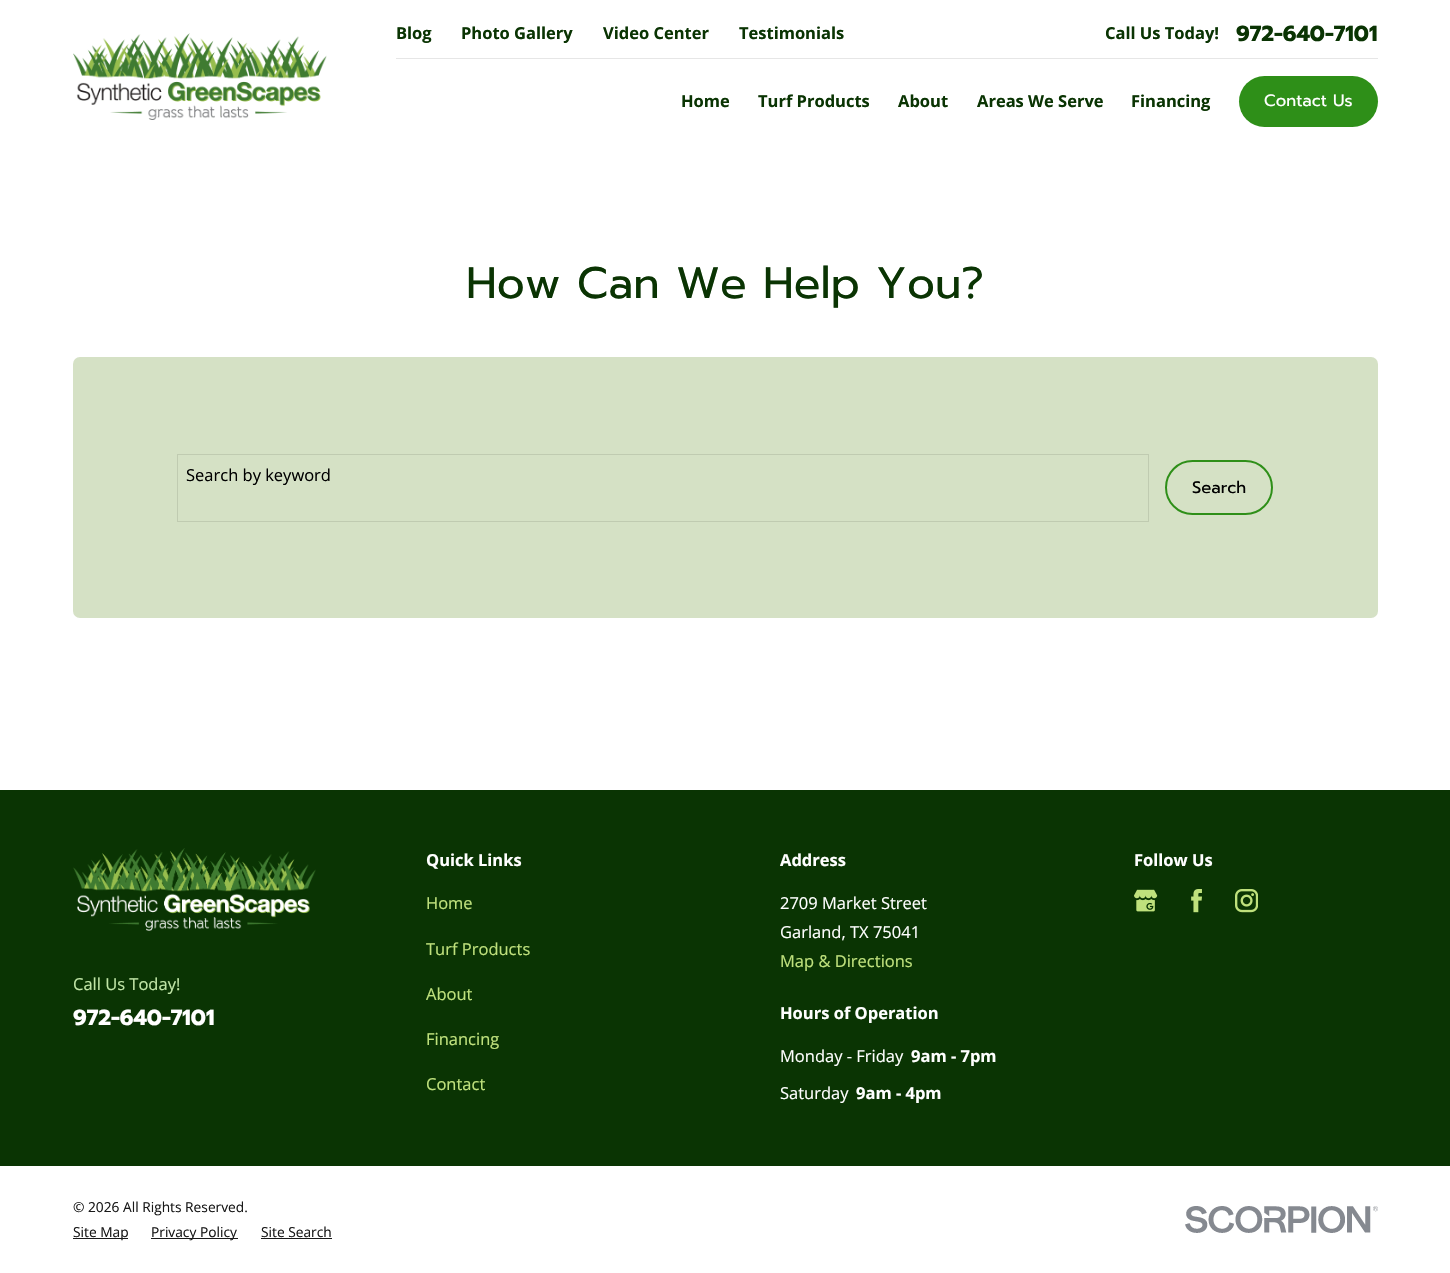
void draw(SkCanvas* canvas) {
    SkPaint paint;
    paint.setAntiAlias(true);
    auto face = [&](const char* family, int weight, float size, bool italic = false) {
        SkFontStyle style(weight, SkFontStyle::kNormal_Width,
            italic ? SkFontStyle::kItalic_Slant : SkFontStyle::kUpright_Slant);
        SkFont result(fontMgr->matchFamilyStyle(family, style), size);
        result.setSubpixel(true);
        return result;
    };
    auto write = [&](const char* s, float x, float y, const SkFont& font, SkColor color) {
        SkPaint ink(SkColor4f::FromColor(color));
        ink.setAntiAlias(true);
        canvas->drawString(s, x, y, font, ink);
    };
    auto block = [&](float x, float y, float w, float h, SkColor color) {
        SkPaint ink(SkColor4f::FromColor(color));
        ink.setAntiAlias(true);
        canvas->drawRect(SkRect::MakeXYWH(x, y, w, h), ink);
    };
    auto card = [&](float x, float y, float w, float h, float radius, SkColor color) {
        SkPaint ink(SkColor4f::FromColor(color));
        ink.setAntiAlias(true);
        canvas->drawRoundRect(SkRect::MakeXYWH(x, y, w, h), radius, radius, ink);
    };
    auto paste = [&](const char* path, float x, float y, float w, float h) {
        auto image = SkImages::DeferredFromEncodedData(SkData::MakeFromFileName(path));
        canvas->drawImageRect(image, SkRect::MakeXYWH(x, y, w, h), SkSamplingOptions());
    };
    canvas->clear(SK_ColorWHITE);
    paste("pic1.png", 73, 33, 254, 87);
    block(396, 58, 982, 1, SkColorSetRGB(230, 230, 230));
    auto kFont1 = face("Open Sans", 700, 16.5f);
    write("Blog", 396, 39, kFont1, SkColorSetRGB(10, 52, 3));
    write("Photo Gallery", 461, 39, kFont1, SkColorSetRGB(10, 52, 3));
    write("Video Center", 603, 39, kFont1, SkColorSetRGB(10, 52, 3));
    write("Testimonials", 739, 39, kFont1, SkColorSetRGB(10, 52, 3));
    write("Call Us Today!", 1105, 39, kFont1, SkColorSetRGB(10, 52, 3));
    auto kFont2 = face("Prompt", 700, 21.75f);
    write("972-640-7101", 1236, 41, kFont2, SkColorSetRGB(10, 52, 3));
    write("Home", 681, 107, kFont1, SkColorSetRGB(10, 52, 3));
    write("Turf Products", 758, 107, kFont1, SkColorSetRGB(10, 52, 3));
    write("About", 898, 107, kFont1, SkColorSetRGB(10, 52, 3));
    write("Areas We Serve", 977, 107, kFont1, SkColorSetRGB(10, 52, 3));
    write("Financing", 1131, 107, kFont1, SkColorSetRGB(10, 52, 3));
    card(1239, 76, 139, 51, 25.5f, SkColorSetRGB(46, 143, 24));
    auto kFont3 = face("Prompt", 400, 16.5f);
    write("Contact Us", 1264, 106, kFont3, SK_ColorWHITE);
    auto kFont4 = face("Prompt", 400, 44);
    write("How Can We Help You?", 466, 298, kFont4, SkColorSetRGB(10, 52, 3));
    card(73, 357, 1305, 261, 7, SkColorSetRGB(213, 225, 197));
    paint.setStyle(SkPaint::kStroke_Style);
    paint.setStrokeWidth(1);
    paint.setColor(SkColorSetRGB(192, 203, 177));
    canvas->drawRect(SkRect::MakeXYWH(177.5f, 454.5f, 971, 67), paint);
    auto kFont5 = face("Open Sans", 400, 16.5f);
    write("Search by keyword", 186, 481, kFont5, SK_ColorBLACK);
    paint.setStrokeWidth(2);
    paint.setColor(SkColorSetRGB(46, 143, 24));
    canvas->drawRoundRect(SkRect::MakeXYWH(1166, 461, 106, 53), 26.5f, 26.5f, paint);
    write("Search", 1192, 493, kFont3, SK_ColorBLACK);
    block(0, 790, 1450, 376, SkColorSetRGB(10, 52, 3));
    paste("pic2.png", 73, 848, 243, 83);
    write("Call Us Today!", 73, 990, kFont5, SkColorSetRGB(192, 229, 166));
    write("972-640-7101", 73, 1025, kFont2, SK_ColorWHITE);
    write("Quick Links", 426, 866, kFont1, SK_ColorWHITE);
    write("Home", 426, 909, kFont5, SkColorSetRGB(191, 225, 124));
    write("Turf Products", 426, 955, kFont5, SkColorSetRGB(191, 225, 124));
    write("About", 426, 1000, kFont5, SkColorSetRGB(191, 225, 124));
    write("Financing", 426, 1045, kFont5, SkColorSetRGB(191, 225, 124));
    write("Contact", 426, 1090, kFont5, SkColorSetRGB(191, 225, 124));
    write("Address", 780, 866, kFont1, SK_ColorWHITE);
    write("2709 Market Street", 780, 909, kFont5, SK_ColorWHITE);
    write("Garland, TX 75041", 780, 938, kFont5, SK_ColorWHITE);
    write("Map & Directions", 780, 967, kFont5, SkColorSetRGB(191, 225, 124));
    write("Hours of Operation", 780, 1019, kFont1, SK_ColorWHITE);
    write("Monday - Friday", 780, 1062, kFont5, SK_ColorWHITE);
    write("9am - 7pm", 911, 1062, kFont1, SK_ColorWHITE);
    write("Saturday", 780, 1099, kFont5, SK_ColorWHITE);
    write("9am - 4pm", 856, 1099, kFont1, SK_ColorWHITE);
    write("Follow Us", 1134, 866, kFont1, SK_ColorWHITE);
    paste("pic3.png", 1134, 889, 24, 23);
    paste("pic4.png", 1191, 889, 11, 24);
    paste("pic5.png", 1235, 889, 23, 24);
    auto kFont6 = face("Open Sans", 400, 13.75f);
    write("© 2026 All Rights Reserved.", 73, 1212, kFont6, SkColorSetRGB(25, 25, 25));
    block(73, 1238, 55, 1, SkColorSetRGB(25, 25, 25));
    write("Site Map", 73, 1237, kFont6, SkColorSetRGB(25, 25, 25));
    block(151, 1238, 87, 1, SkColorSetRGB(25, 25, 25));
    write("Privacy Policy", 151, 1237, kFont6, SkColorSetRGB(25, 25, 25));
    write("Site Search", 261, 1237, kFont6, SkColorSetRGB(25, 25, 25));
    block(261, 1238, 71, 1, SkColorSetRGB(25, 25, 25));
    paste("pic6.png", 1185, 1206, 193, 27);
}
